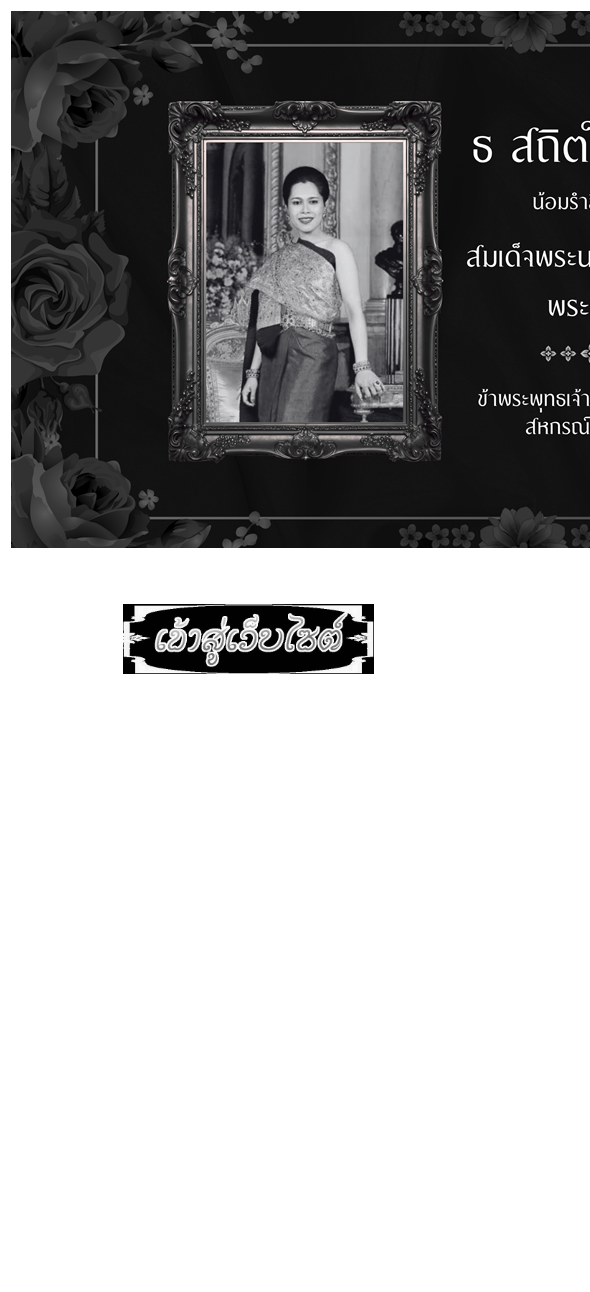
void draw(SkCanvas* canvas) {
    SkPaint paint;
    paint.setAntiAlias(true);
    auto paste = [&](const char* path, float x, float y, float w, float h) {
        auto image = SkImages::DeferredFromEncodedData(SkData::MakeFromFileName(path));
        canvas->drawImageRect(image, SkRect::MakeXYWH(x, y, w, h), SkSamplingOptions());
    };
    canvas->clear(SK_ColorWHITE);
    paste("pic1.png", 11, 11, 579, 537);
    paste("pic2.png", 123, 604, 251, 70);
}
